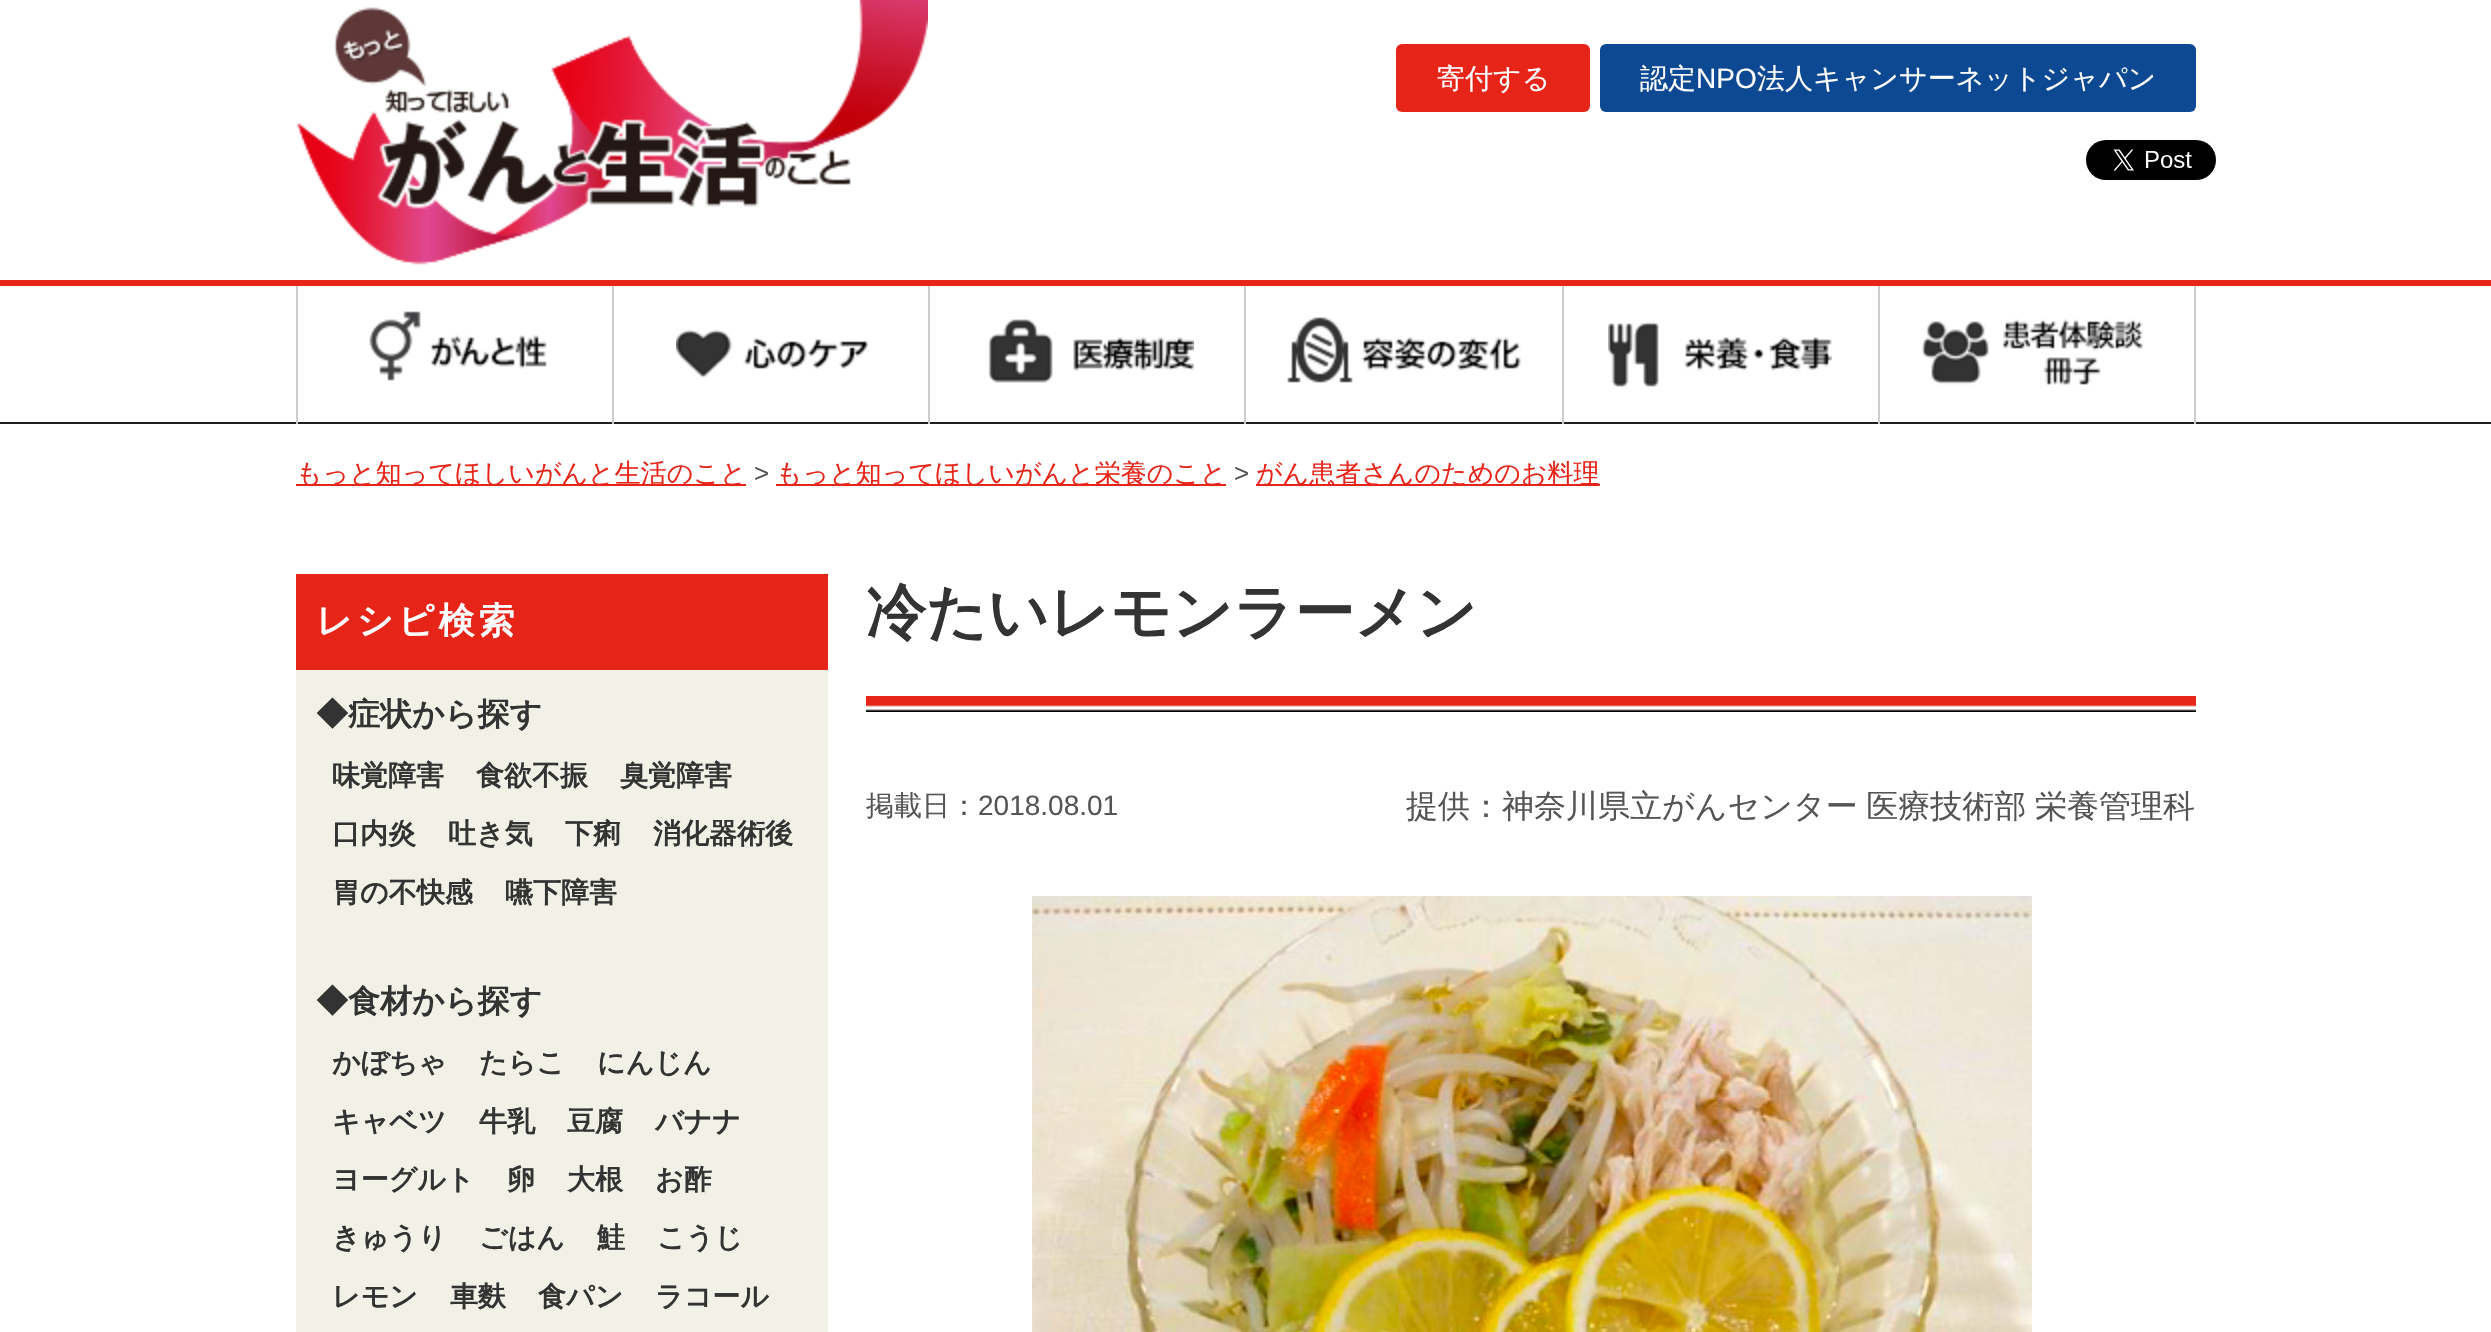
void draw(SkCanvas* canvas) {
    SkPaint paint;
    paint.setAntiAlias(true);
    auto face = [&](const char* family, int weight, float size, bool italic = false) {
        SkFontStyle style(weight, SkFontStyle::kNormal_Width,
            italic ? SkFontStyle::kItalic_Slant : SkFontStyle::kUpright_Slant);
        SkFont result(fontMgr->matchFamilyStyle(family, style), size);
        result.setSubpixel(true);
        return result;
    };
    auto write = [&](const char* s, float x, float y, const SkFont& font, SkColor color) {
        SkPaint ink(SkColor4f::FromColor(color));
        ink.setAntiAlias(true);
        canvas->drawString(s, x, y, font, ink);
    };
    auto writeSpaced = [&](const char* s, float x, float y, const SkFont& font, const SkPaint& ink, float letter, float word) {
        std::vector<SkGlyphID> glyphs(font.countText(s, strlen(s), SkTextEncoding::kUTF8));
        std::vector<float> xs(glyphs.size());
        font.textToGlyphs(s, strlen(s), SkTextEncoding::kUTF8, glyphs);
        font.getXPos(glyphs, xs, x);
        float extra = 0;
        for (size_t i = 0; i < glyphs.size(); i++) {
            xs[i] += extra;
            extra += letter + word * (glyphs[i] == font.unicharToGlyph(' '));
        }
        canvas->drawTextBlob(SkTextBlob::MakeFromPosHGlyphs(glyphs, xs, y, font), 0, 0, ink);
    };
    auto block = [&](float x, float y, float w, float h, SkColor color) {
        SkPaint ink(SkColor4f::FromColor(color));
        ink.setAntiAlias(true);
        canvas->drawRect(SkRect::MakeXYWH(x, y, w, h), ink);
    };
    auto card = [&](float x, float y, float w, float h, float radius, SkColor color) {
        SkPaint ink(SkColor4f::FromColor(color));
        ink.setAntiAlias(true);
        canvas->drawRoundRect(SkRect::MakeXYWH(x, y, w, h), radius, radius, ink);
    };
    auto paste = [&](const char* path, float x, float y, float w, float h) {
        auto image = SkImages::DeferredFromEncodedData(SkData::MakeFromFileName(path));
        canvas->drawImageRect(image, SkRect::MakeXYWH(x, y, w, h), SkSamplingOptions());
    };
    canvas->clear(SK_ColorWHITE);
    paste("pic1.png", 297, 0, 631, 265);
    card(1396, 44, 194, 68, 6, SkColorSetRGB(231, 36, 24));
    auto kFont1 = face("WenQuanYi Zen Hei", 500, 28);
    write("寄付する", 1437, 88, kFont1, SK_ColorWHITE);
    card(1600, 44, 596, 68, 6, SkColorSetRGB(12, 73, 146));
    write("認定", 1640, 88, kFont1, SK_ColorWHITE);
    auto kFont2 = face("Liberation Sans", 400, 28);
    write("NPO", 1696, 88, kFont2, SK_ColorWHITE);
    write("法人キャンサーネットジャパン", 1757, 88, kFont1, SK_ColorWHITE);
    paste("pic2.png", 2086, 140, 130, 40);
    block(0, 280, 2491, 6, SkColorSetRGB(231, 36, 24));
    block(0, 422, 2491, 2, SkColorSetRGB(31, 31, 31));
    block(296, 286, 2, 138, SkColorSetRGB(205, 205, 205));
    paste("pic3.png", 369, 311, 178, 70);
    block(612, 286, 2, 138, SkColorSetRGB(205, 205, 205));
    paste("pic4.png", 676, 329, 192, 49);
    block(928, 286, 2, 138, SkColorSetRGB(205, 205, 205));
    paste("pic5.png", 988, 319, 206, 64);
    block(1244, 286, 2, 138, SkColorSetRGB(205, 205, 205));
    paste("pic6.png", 1287, 317, 234, 66);
    block(1562, 286, 2, 138, SkColorSetRGB(205, 205, 205));
    paste("pic7.png", 1608, 321, 224, 66);
    block(2194, 286, 2, 138, SkColorSetRGB(205, 205, 205));
    block(1878, 286, 2, 138, SkColorSetRGB(205, 205, 205));
    paste("pic8.png", 1921, 319, 223, 66);
    block(296, 484, 450, 2, SkColorSetRGB(231, 36, 24));
    auto kFont3 = face("WenQuanYi Zen Hei", 500, 26);
    write("もっと知ってほしいがんと生活のこと", 296, 482, kFont3, SkColorSetRGB(231, 36, 24));
    auto kFont4 = face("Liberation Sans", 400, 26);
    write(">", 754, 482, kFont4, SkColorSetRGB(85, 85, 85));
    block(776, 484, 450, 2, SkColorSetRGB(231, 36, 24));
    write("もっと知ってほしいがんと栄養のこと", 776, 482, kFont3, SkColorSetRGB(231, 36, 24));
    write(">", 1234, 482, kFont4, SkColorSetRGB(85, 85, 85));
    block(1256, 484, 344, 2, SkColorSetRGB(231, 36, 24));
    write("がん患者さんのためのお料理", 1256, 482, kFont3, SkColorSetRGB(231, 36, 24));
    block(296, 670, 532, 662, SkColorSetRGB(241, 241, 231));
    block(296, 574, 532, 96, SkColorSetRGB(231, 36, 24));
    auto kFont5 = face("WenQuanYi Zen Hei", 700, 36);
    paint.setColor(SK_ColorWHITE);
    writeSpaced("レシピ検索", 316, 633, kFont5, paint, 4, 0);
    auto kFont6 = face("WenQuanYi Zen Hei", 700, 32);
    write("◆症状から探す", 316, 725, kFont6, SkColorSetRGB(51, 51, 51));
    auto kFont7 = face("WenQuanYi Zen Hei", 700, 28);
    write("味覚障害", 332, 785, kFont7, SkColorSetRGB(51, 51, 51));
    write("食欲不振", 476, 785, kFont7, SkColorSetRGB(51, 51, 51));
    write("臭覚障害", 620, 785, kFont7, SkColorSetRGB(51, 51, 51));
    write("口内炎", 332, 843, kFont7, SkColorSetRGB(51, 51, 51));
    write("吐き気", 448, 843, kFont7, SkColorSetRGB(51, 51, 51));
    write("下痢", 565, 843, kFont7, SkColorSetRGB(51, 51, 51));
    write("消化器術後", 653, 843, kFont7, SkColorSetRGB(51, 51, 51));
    write("胃の不快感", 332, 902, kFont7, SkColorSetRGB(51, 51, 51));
    write("嚥下障害", 505, 902, kFont7, SkColorSetRGB(51, 51, 51));
    write("◆食材から探す", 316, 1012, kFont6, SkColorSetRGB(51, 51, 51));
    write("かぼちゃ", 332, 1072, kFont7, SkColorSetRGB(51, 51, 51));
    write("たらこ", 479, 1072, kFont7, SkColorSetRGB(51, 51, 51));
    write("にんじん", 597, 1072, kFont7, SkColorSetRGB(51, 51, 51));
    write("キャベツ", 332, 1131, kFont7, SkColorSetRGB(51, 51, 51));
    write("牛乳", 479, 1131, kFont7, SkColorSetRGB(51, 51, 51));
    write("豆腐", 567, 1131, kFont7, SkColorSetRGB(51, 51, 51));
    write("バナナ", 655, 1131, kFont7, SkColorSetRGB(51, 51, 51));
    write("ヨーグルト", 332, 1189, kFont7, SkColorSetRGB(51, 51, 51));
    write("卵", 507, 1189, kFont7, SkColorSetRGB(51, 51, 51));
    write("大根", 567, 1189, kFont7, SkColorSetRGB(51, 51, 51));
    write("お酢", 655, 1189, kFont7, SkColorSetRGB(51, 51, 51));
    write("きゅうり", 332, 1247, kFont7, SkColorSetRGB(51, 51, 51));
    write("ごはん", 479, 1247, kFont7, SkColorSetRGB(51, 51, 51));
    write("鮭", 597, 1247, kFont7, SkColorSetRGB(51, 51, 51));
    write("こうじ", 657, 1247, kFont7, SkColorSetRGB(51, 51, 51));
    write("レモン", 332, 1306, kFont7, SkColorSetRGB(51, 51, 51));
    write("車麩", 450, 1306, kFont7, SkColorSetRGB(51, 51, 51));
    write("食パン", 538, 1306, kFont7, SkColorSetRGB(51, 51, 51));
    write("ラコール", 655, 1306, kFont7, SkColorSetRGB(51, 51, 51));
    paste("pic9.png", 866, 696, 1330, 16);
    auto kFont8 = face("WenQuanYi Zen Hei", 700, 60);
    write("冷たいレモンラーメン", 866, 633, kFont8, SkColorSetRGB(51, 51, 51));
    write("掲載日：", 866, 815, kFont1, SkColorSetRGB(85, 85, 85));
    write("2018.08.01", 978, 815, kFont2, SkColorSetRGB(85, 85, 85));
    auto kFont9 = face("WenQuanYi Zen Hei", 500, 32);
    paint.setColor(SkColorSetRGB(85, 85, 85));
    writeSpaced("提供：神奈川県立がんセンター 医療技術部 栄養管理科", 1406, 817, kFont9, paint, 0, -1);
    paste("pic10.png", 1032, 896, 1000, 436);
}
